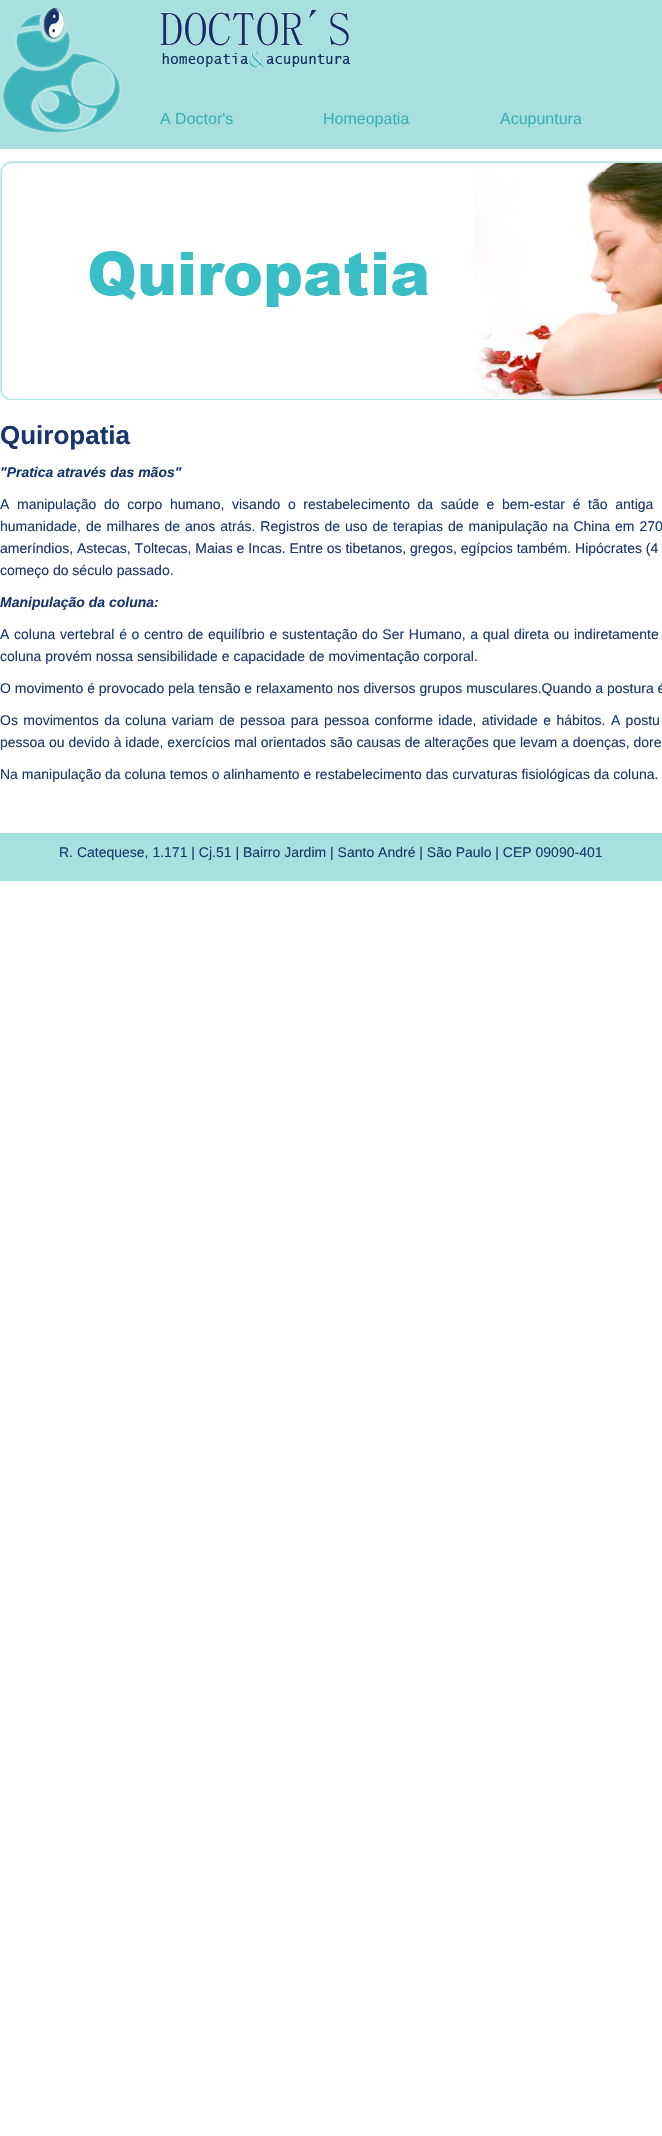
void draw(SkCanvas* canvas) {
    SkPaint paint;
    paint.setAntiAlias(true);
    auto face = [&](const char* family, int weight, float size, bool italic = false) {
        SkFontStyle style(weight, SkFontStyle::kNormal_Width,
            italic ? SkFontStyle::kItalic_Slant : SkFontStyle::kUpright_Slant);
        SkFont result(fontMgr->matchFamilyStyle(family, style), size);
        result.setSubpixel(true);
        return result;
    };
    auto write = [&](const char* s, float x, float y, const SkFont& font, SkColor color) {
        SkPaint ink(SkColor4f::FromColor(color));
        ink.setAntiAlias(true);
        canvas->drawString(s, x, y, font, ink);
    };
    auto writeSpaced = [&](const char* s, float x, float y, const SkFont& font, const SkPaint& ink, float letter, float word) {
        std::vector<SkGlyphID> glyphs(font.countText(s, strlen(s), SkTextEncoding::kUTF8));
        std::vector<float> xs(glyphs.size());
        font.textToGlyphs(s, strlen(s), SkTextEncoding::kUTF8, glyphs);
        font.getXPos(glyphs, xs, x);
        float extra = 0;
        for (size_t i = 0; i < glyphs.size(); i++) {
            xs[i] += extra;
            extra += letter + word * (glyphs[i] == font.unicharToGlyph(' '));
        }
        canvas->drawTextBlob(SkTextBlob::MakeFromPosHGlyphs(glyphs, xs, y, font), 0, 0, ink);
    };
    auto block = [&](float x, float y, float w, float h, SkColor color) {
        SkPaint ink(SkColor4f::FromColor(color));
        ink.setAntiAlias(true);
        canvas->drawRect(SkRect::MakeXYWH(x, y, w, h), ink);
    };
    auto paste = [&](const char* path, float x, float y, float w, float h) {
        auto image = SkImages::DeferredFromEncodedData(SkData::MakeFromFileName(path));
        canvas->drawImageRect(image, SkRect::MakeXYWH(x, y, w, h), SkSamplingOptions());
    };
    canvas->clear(SK_ColorWHITE);
    block(0, 0, 662, 149, SkColorSetRGB(168, 224, 223));
    paste("pic1.png", 1, 8, 121, 126);
    paste("pic2.png", 160, 9, 191, 58);
    auto kFont1 = face("Liberation Sans", 400, 16);
    write("A Doctor's", 160, 124, kFont1, SkColorSetRGB(60, 175, 181));
    write("Homeopatia", 323, 124, kFont1, SkColorSetRGB(60, 175, 181));
    write("Acupuntura", 500, 124, kFont1, SkColorSetRGB(60, 175, 181));
    paste("pic3.png", 0, 161, 662, 239);
    auto kFont2 = face("Liberation Sans", 700, 26);
    write("Quiropatia", 0, 444, kFont2, SkColorSetRGB(24, 54, 108));
    auto kFont3 = face("Liberation Sans", 700, 14, true);
    write("\"Pratica através das mãos\"", 0, 477, kFont3, SkColorSetRGB(24, 54, 108));
    auto kFont4 = face("Liberation Sans", 400, 14);
    paint.setColor(SkColorSetRGB(24, 54, 108));
    writeSpaced("A manipulação do corpo humano, visando o restabelecimento da saúde e bem-estar é tão antiga", 0, 509, kFont4, paint, 0, 3.75f);
    writeSpaced("humanidade, de milhares de anos atrás. Registros de uso de terapias de manipulação na China em 270", 0, 531, kFont4, paint, 0, 1.1f);
    write("ameríndios, Astecas, Toltecas, Maias e Incas. Entre os tibetanos, gregos, egípcios também. Hipócrates (4", 0, 553, kFont4, SkColorSetRGB(24, 54, 108));
    write("começo do século passado.", 0, 575, kFont4, SkColorSetRGB(24, 54, 108));
    write("Manipulação da coluna:", 0, 607, kFont3, SkColorSetRGB(24, 54, 108));
    writeSpaced("A coluna vertebral é o centro de equilíbrio e sustentação do Ser Humano, a qual direta ou indiretamente", 0, 639, kFont4, paint, 0, 0.8f);
    write("coluna provém nossa sensibilidade e capacidade de movimentação corporal.", 0, 661, kFont4, SkColorSetRGB(24, 54, 108));
    write("O movimento é provocado pela tensão e relaxamento nos diversos grupos musculares.Quando a postura é", 0, 693, kFont4, SkColorSetRGB(24, 54, 108));
    writeSpaced("Os movimentos da coluna variam de pessoa para pessoa conforme idade, atividade e hábitos. A postu", 0, 725, kFont4, paint, 0, 1.5f);
    write("pessoa ou devido à idade, exercícios mal orientados são causas de alterações que levam a doenças, dore", 0, 747, kFont4, SkColorSetRGB(24, 54, 108));
    write("Na manipulação da coluna temos o alinhamento e restabelecimento das curvaturas fisiológicas da coluna.", 0, 779, kFont4, SkColorSetRGB(24, 54, 108));
    block(0, 833, 662, 48, SkColorSetRGB(168, 224, 223));
    write("R. Catequese, 1.171 | Cj.51 | Bairro Jardim | Santo André | São Paulo | CEP 09090-401", 59, 857, kFont4, SkColorSetRGB(24, 54, 108));
}
